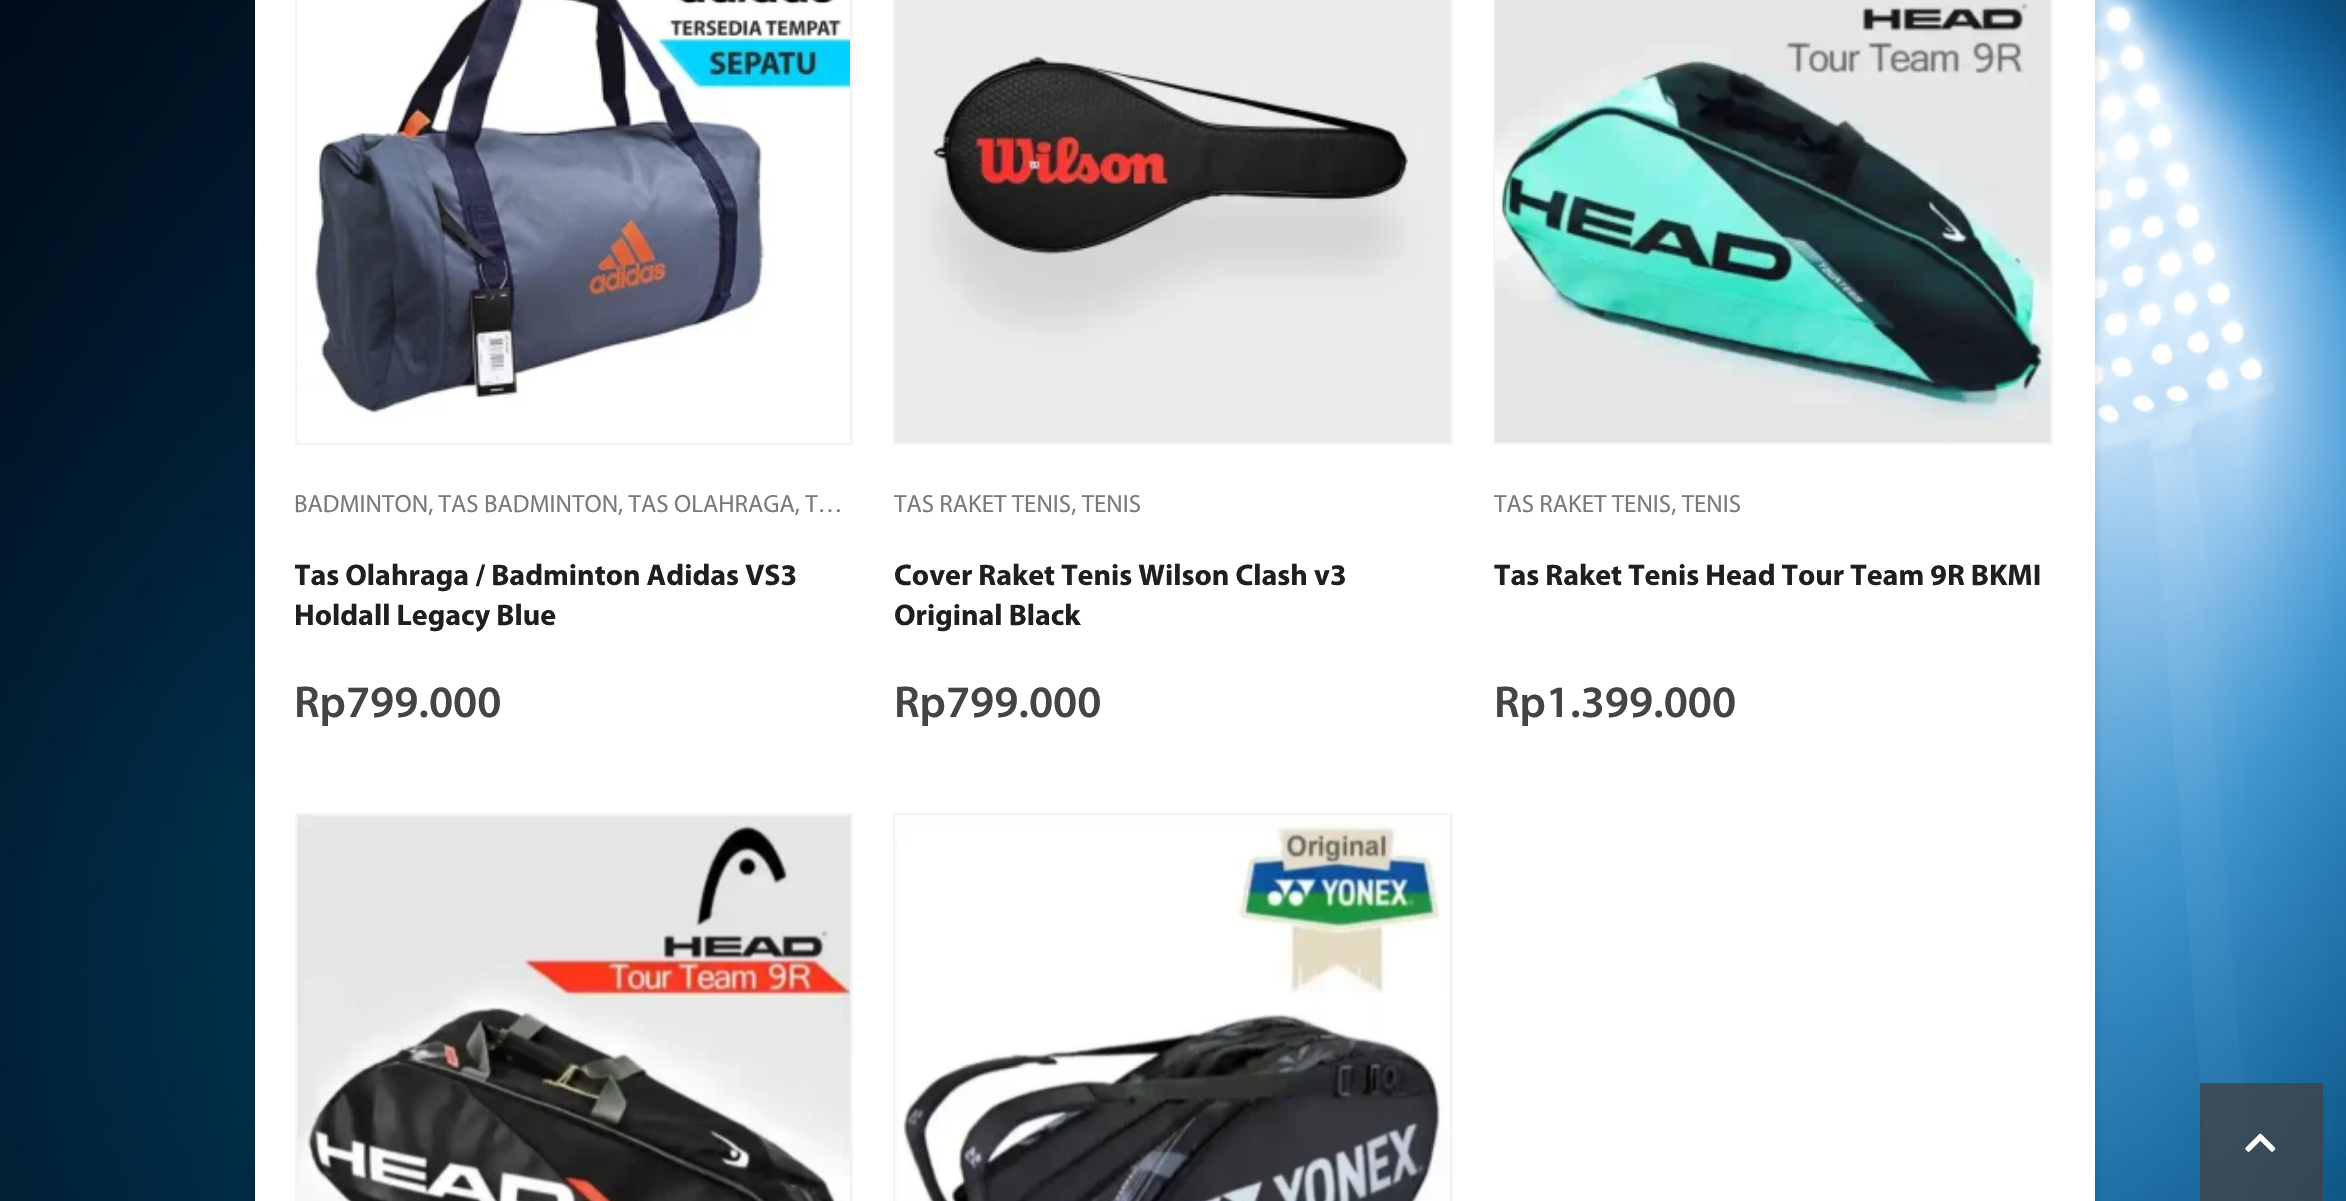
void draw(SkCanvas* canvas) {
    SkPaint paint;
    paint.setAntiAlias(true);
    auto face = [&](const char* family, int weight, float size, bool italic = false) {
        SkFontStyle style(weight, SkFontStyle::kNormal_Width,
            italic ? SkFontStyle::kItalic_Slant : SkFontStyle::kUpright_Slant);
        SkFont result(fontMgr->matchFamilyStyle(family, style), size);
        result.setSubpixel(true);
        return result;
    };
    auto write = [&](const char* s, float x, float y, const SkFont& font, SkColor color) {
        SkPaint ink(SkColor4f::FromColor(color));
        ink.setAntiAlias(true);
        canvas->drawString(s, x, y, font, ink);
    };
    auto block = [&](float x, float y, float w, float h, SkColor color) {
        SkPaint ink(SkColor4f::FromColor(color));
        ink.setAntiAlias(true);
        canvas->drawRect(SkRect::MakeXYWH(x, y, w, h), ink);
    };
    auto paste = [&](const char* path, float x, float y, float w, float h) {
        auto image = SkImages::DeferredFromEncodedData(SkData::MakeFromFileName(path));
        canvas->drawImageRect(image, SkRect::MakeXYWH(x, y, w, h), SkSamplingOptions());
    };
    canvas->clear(SK_ColorWHITE);
    paste("pic1.png", 0, 0, 2346, 1201);
    paint.setColor(SkColorSetARGB(38, 0, 0, 0));
    paint.setMaskFilter(SkMaskFilter::MakeBlur(kNormal_SkBlurStyle, 5));
    canvas->drawRect(SkRect::MakeXYWH(255, -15, 1840, 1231), paint);
    paint.setMaskFilter(nullptr);
    block(255, 0, 1840, 1201, SK_ColorWHITE);
    paint.setStyle(SkPaint::kStroke_Style);
    paint.setStrokeWidth(3);
    paint.setColor(SkColorSetRGB(244, 244, 244));
    canvas->drawRect(SkRect::MakeXYWH(296.5f, -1.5f, 555, 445), paint);
    paste("pic2.png", 297, 0, 553, 443);
    auto kFont1 = face("Myriad", 400, 25);
    write("BADMINTON, TAS BADMINTON, TAS OLAHRAGA, T…", 294, 512, kFont1, SkColorSetRGB(121, 122, 125));
    canvas->save();
    canvas->clipRect(SkRect::MakeXYWH(295, 528, 558, 135));
    auto kFont2 = face("Myriad", 700, 30);
    write("Tas Olahraga / Badminton Adidas VS3", 294, 585, kFont2, SkColorSetRGB(30, 31, 32));
    canvas->restore();
    write("Holdall Legacy Blue", 294, 625, kFont2, SkColorSetRGB(30, 31, 32));
    auto kFont3 = face("Myriad", 600, 45);
    write("Rp799.000", 294, 717, kFont3, SkColorSetRGB(68, 68, 68));
    canvas->drawRect(SkRect::MakeXYWH(894.5f, -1.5f, 557, 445), paint);
    paste("pic3.png", 895, 0, 555, 443);
    write("TAS RAKET TENIS, TENIS", 894, 512, kFont1, SkColorSetRGB(121, 122, 125));
    write("Cover Raket Tenis Wilson Clash v3", 894, 585, kFont2, SkColorSetRGB(30, 31, 32));
    write("Original Black", 894, 625, kFont2, SkColorSetRGB(30, 31, 32));
    write("Rp799.000", 894, 717, kFont3, SkColorSetRGB(68, 68, 68));
    canvas->drawRect(SkRect::MakeXYWH(1494.5f, -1.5f, 557, 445), paint);
    paste("pic4.png", 1495, 0, 555, 443);
    write("TAS RAKET TENIS, TENIS", 1494, 512, kFont1, SkColorSetRGB(121, 122, 125));
    write("Tas Raket Tenis Head Tour Team 9R BKMI", 1494, 585, kFont2, SkColorSetRGB(30, 31, 32));
    write("Rp1.399.000", 1494, 717, kFont3, SkColorSetRGB(68, 68, 68));
    canvas->drawRect(SkRect::MakeXYWH(296.5f, 814.5f, 555, 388), paint);
    paste("pic5.png", 297, 815, 553, 386);
    canvas->drawRect(SkRect::MakeXYWH(894.5f, 814.5f, 557, 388), paint);
    paste("pic6.png", 895, 815, 555, 386);
    block(2200, 1083, 123, 118, SkColorSetARGB(191, 64, 64, 64));
    paste("pic7.png", 2245, 1133, 31, 19);
}
